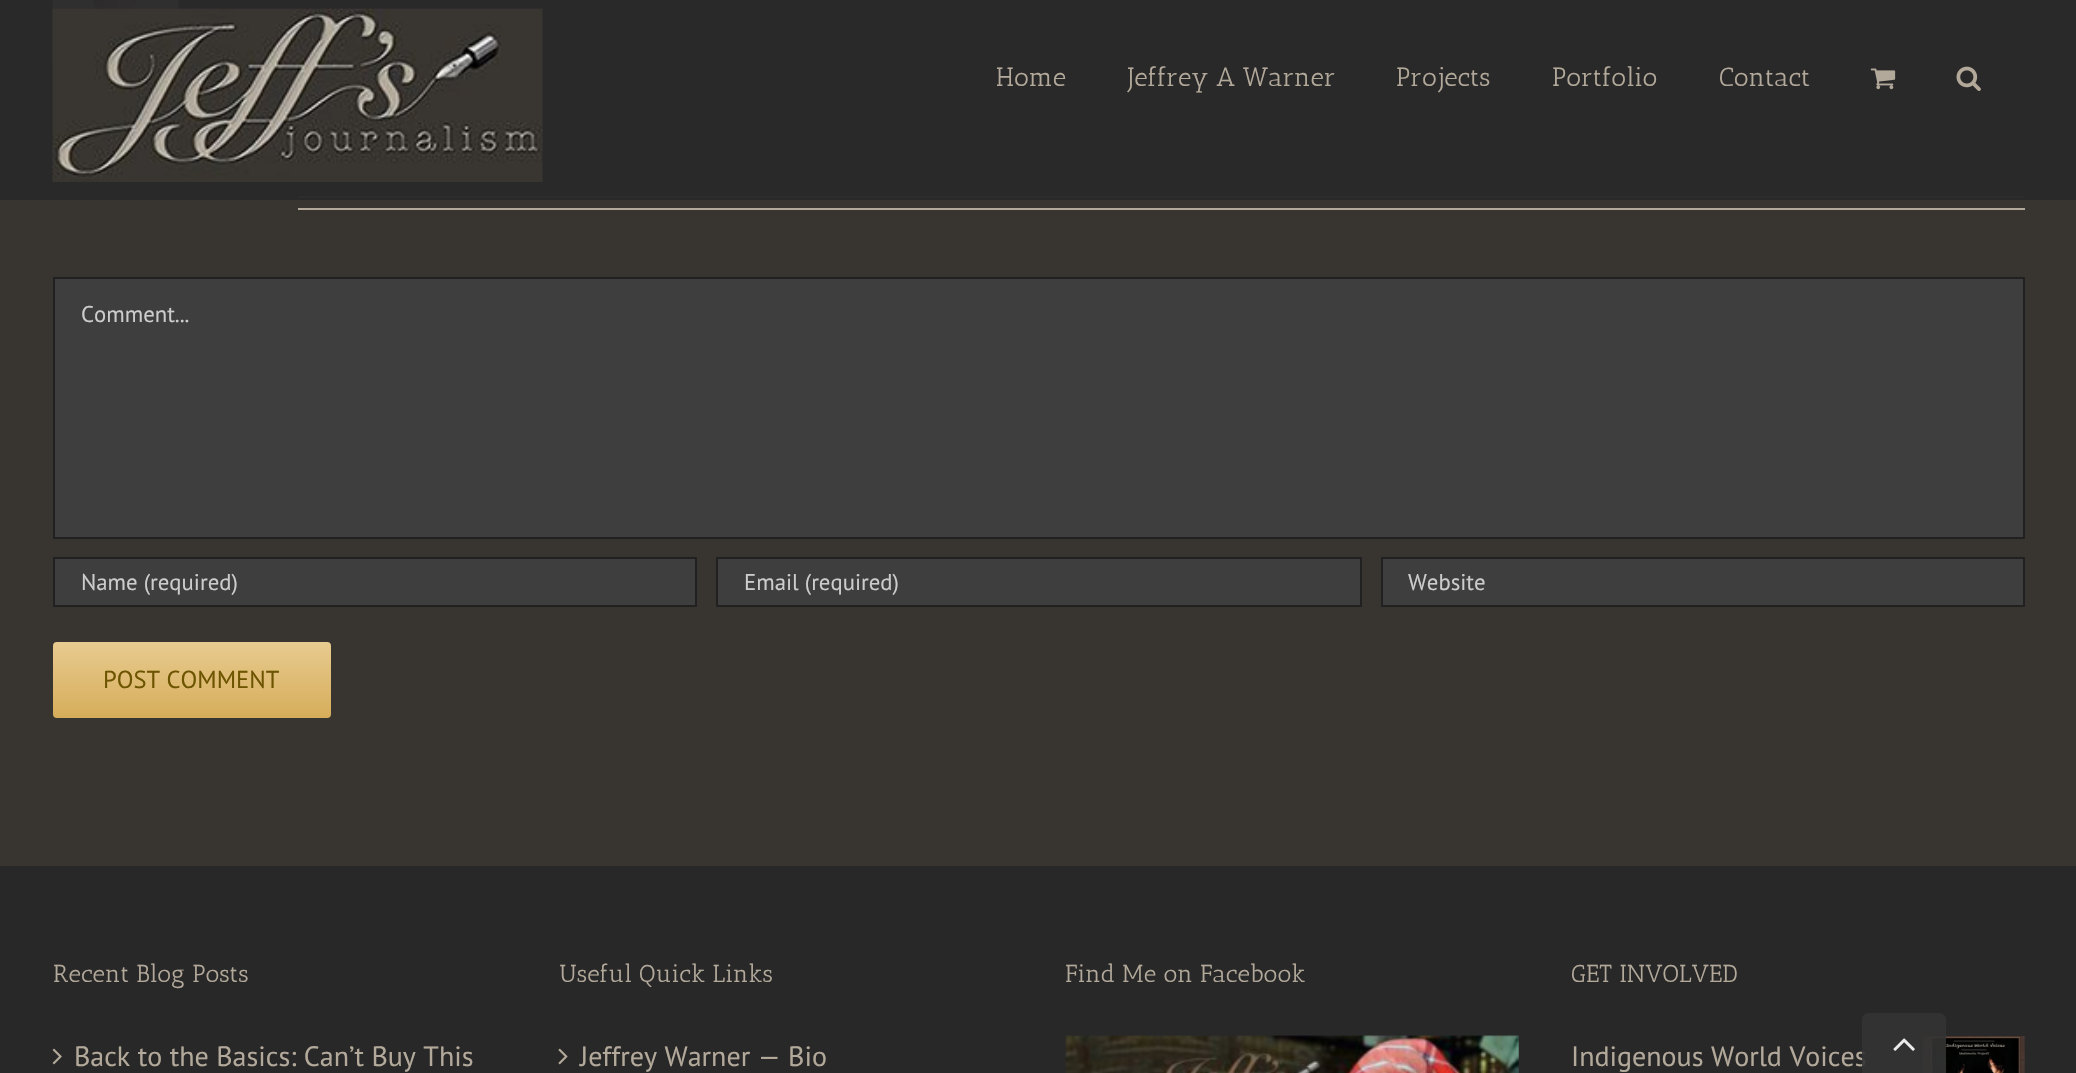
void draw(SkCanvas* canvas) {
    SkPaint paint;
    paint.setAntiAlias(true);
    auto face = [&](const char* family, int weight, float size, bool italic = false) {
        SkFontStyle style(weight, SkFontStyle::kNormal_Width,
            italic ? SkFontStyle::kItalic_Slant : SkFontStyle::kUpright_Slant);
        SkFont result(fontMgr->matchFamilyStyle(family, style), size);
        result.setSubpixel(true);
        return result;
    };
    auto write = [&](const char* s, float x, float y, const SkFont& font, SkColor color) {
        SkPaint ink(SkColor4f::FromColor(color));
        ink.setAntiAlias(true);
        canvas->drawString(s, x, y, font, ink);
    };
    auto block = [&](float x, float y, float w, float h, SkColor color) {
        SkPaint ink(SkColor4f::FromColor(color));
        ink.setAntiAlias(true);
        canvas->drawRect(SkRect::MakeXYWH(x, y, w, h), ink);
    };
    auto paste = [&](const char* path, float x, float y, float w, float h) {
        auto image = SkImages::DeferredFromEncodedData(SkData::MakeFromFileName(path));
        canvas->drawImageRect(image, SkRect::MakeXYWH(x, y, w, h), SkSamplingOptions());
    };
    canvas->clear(SkColorSetRGB(56, 53, 48));
    paste("pic4.png", 52, 0, 127, 102);
    block(298, 196, 1727, 2, SkColorSetRGB(178, 169, 154));
    block(0, 0, 2076, 200, SkColorSetARGB(247, 41, 40, 41));
    paste("pic1.png", 52, 8, 491, 174);
    auto kFont1 = face("Antic Slab", 400, 26.25f);
    write("Home", 996, 86, kFont1, SkColorSetRGB(178, 169, 154));
    write("Jeffrey A Warner", 1128, 86, kFont1, SkColorSetRGB(178, 169, 154));
    write("Projects", 1396, 86, kFont1, SkColorSetRGB(178, 169, 154));
    write("Portfolio", 1552, 86, kFont1, SkColorSetRGB(178, 169, 154));
    write("Contact", 1719, 86, kFont1, SkColorSetRGB(178, 169, 154));
    paste("pic2.png", 1870, 68, 26, 22);
    paste("pic3.png", 1956, 66, 25, 25);
    block(298, 208, 1727, 2, SkColorSetRGB(178, 169, 154));
    paint.setColor(SkColorSetRGB(62, 62, 62));
    canvas->drawRect(SkRect::MakeXYWH(54, 278, 1970, 260), paint);
    paint.setStyle(SkPaint::kStroke_Style);
    paint.setStrokeWidth(2);
    paint.setColor(SkColorSetRGB(33, 33, 34));
    canvas->drawRect(SkRect::MakeXYWH(54, 278, 1970, 260), paint);
    auto kFont2 = face("PT Sans", 400, 22.75f);
    write("Comment...", 81, 322, kFont2, SkColorSetRGB(204, 204, 204));
    paint.setStyle(SkPaint::kFill_Style);
    paint.setColor(SkColorSetRGB(62, 62, 62));
    canvas->drawRect(SkRect::MakeXYWH(54, 558, 642, 48), paint);
    paint.setStyle(SkPaint::kStroke_Style);
    paint.setColor(SkColorSetRGB(33, 33, 34));
    canvas->drawRect(SkRect::MakeXYWH(54, 558, 642, 48), paint);
    write("Name (required)", 81, 590, kFont2, SkColorSetRGB(204, 204, 204));
    paint.setStyle(SkPaint::kFill_Style);
    paint.setColor(SkColorSetRGB(62, 62, 62));
    canvas->drawRect(SkRect::MakeXYWH(717, 558, 644, 48), paint);
    paint.setStyle(SkPaint::kStroke_Style);
    paint.setColor(SkColorSetRGB(33, 33, 34));
    canvas->drawRect(SkRect::MakeXYWH(717, 558, 644, 48), paint);
    write("Email (required)", 744, 590, kFont2, SkColorSetRGB(204, 204, 204));
    paint.setStyle(SkPaint::kFill_Style);
    paint.setColor(SkColorSetRGB(62, 62, 62));
    canvas->drawRect(SkRect::MakeXYWH(1382, 558, 642, 48), paint);
    paint.setStyle(SkPaint::kStroke_Style);
    paint.setColor(SkColorSetRGB(33, 33, 34));
    canvas->drawRect(SkRect::MakeXYWH(1382, 558, 642, 48), paint);
    write("Website", 1408, 590, kFont2, SkColorSetRGB(204, 204, 204));
    paint.setStyle(SkPaint::kFill_Style);
    {
        const SkColor colors[] = {SkColorSetRGB(232, 203, 144), SkColorSetRGB(214, 173, 90)};
        const float stops[] = {0, 1};
        const SkPoint ends[] = {{192, 642}, {192, 718}};
        paint.setShader(SkGradientShader::MakeLinear(ends, colors, stops, 2, SkTileMode::kClamp));
        paint.setAlpha(255);
    }
    canvas->drawRoundRect(SkRect::MakeXYWH(53, 642, 278, 76), 4, 4, paint);
    auto kFont3 = face("PT Sans", 400, 24.5f);
    write("POST COMMENT", 103, 688, kFont3, SkColorSetRGB(109, 84, 0));
    block(0, 866, 2076, 207, SkColorSetRGB(41, 40, 41));
    auto kFont4 = face("Antic Slab", 400, 24.5f);
    write("Recent Blog Posts", 53, 982, kFont4, SkColorSetRGB(178, 169, 154));
    paste("pic5.png", 52, 1048, 10, 17);
    auto kFont5 = face("PT Sans", 400, 28);
    write("Back to the Basics: Can’t Buy This", 74, 1066, kFont5, SkColorSetRGB(178, 169, 154));
    write("Useful Quick Links", 559, 982, kFont4, SkColorSetRGB(178, 169, 154));
    paste("pic6.png", 558, 1048, 10, 17);
    write("Jeffrey Warner — Bio", 580, 1066, kFont5, SkColorSetRGB(178, 169, 154));
    write("Find Me on Facebook", 1065, 982, kFont4, SkColorSetRGB(178, 169, 154));
    paste("pic7.png", 1065, 1035, 454, 38);
    write("GET INVOLVED", 1571, 982, kFont4, SkColorSetRGB(178, 169, 154));
    write("Indigenous World Voices", 1571, 1066, kFont5, SkColorSetRGB(178, 169, 154));
    paste("pic8.png", 1923, 1036, 102, 37);
    paint.setShader(nullptr);
    paint.setColor(SkColorSetARGB(230, 51, 51, 51));
    canvas->drawPath(SkPathBuilder().moveTo(1869, 1013).lineTo(1939, 1013).cubicTo(1943, 1013, 1946, 1016, 1946, 1020).lineTo(1946, 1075).lineTo(1862, 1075).lineTo(1862, 1020).cubicTo(1862, 1016, 1865, 1013, 1869, 1013).close().detach(), paint);
    paste("pic9.png", 1893, 1038, 22, 13);
}
